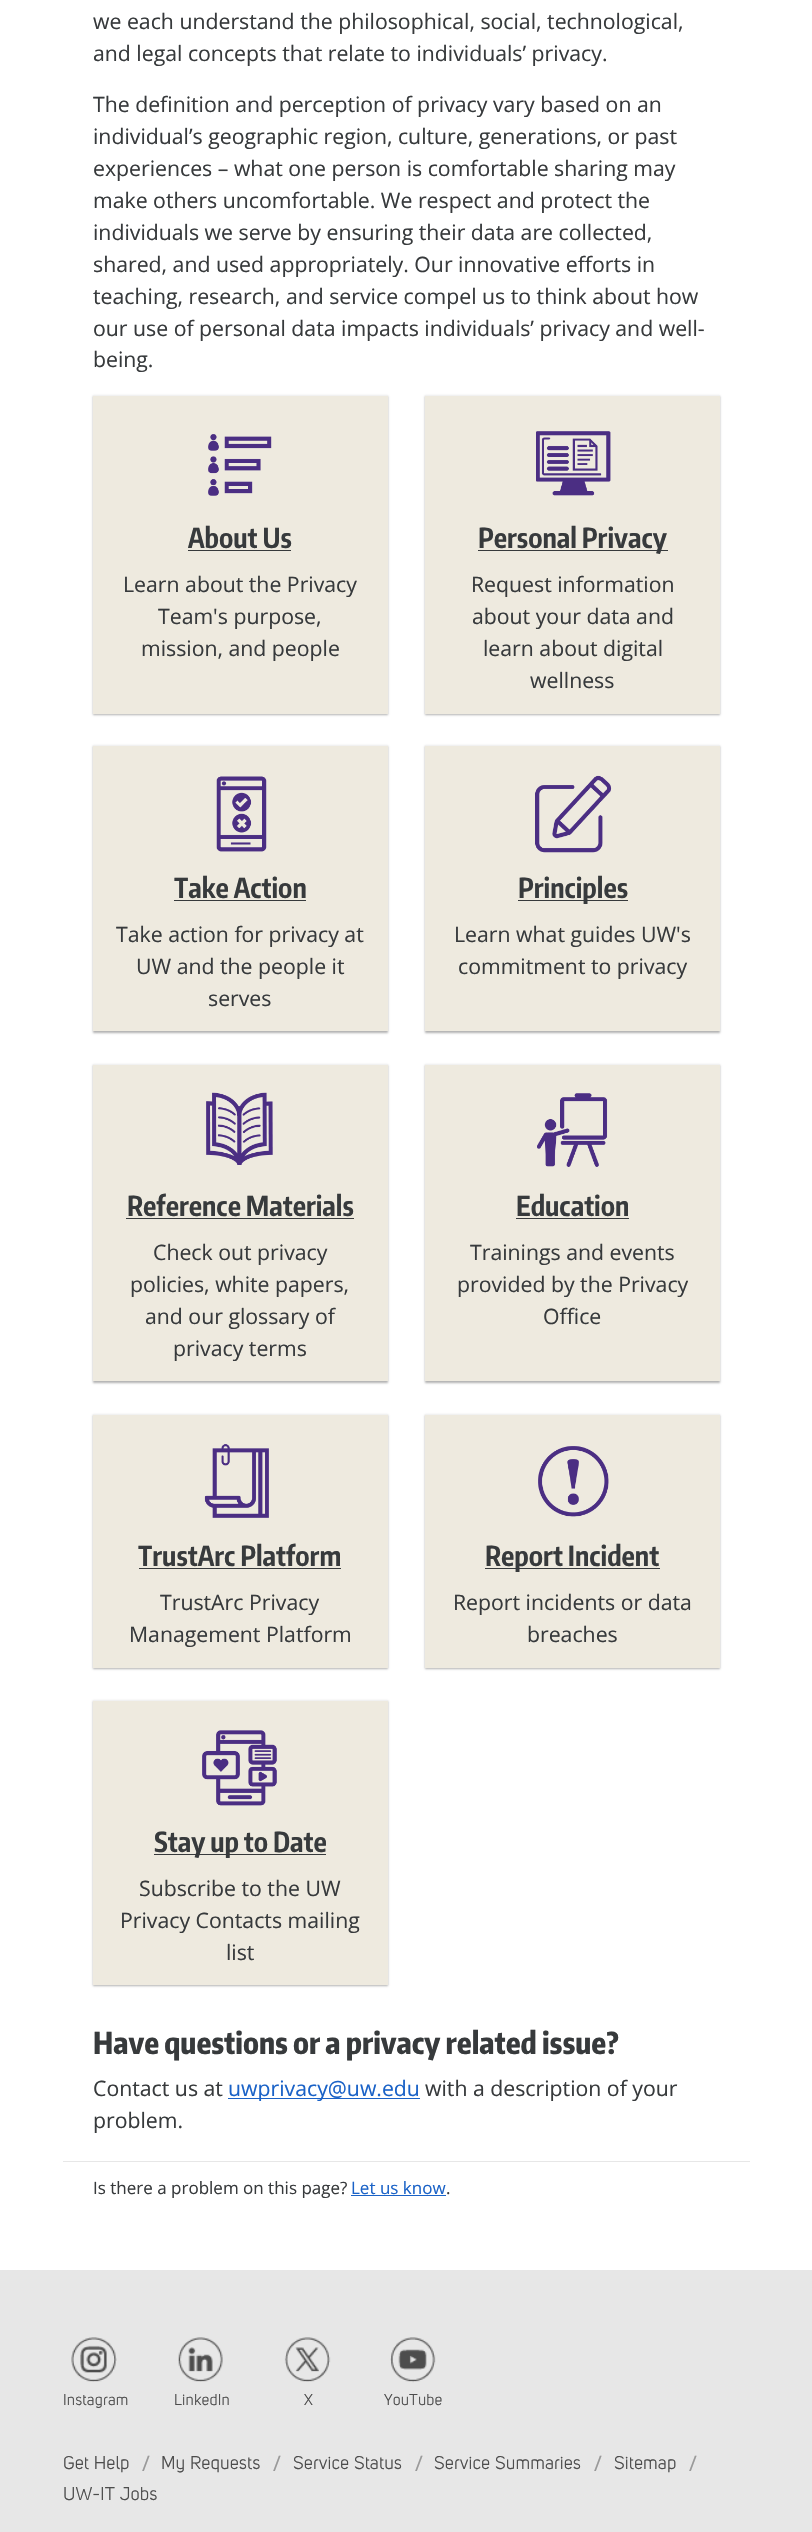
void draw(SkCanvas* canvas) {
    SkPaint paint;
    paint.setAntiAlias(true);
    auto face = [&](const char* family, int weight, float size, bool italic = false) {
        SkFontStyle style(weight, SkFontStyle::kNormal_Width,
            italic ? SkFontStyle::kItalic_Slant : SkFontStyle::kUpright_Slant);
        SkFont result(fontMgr->matchFamilyStyle(family, style), size);
        result.setSubpixel(true);
        return result;
    };
    auto write = [&](const char* s, float x, float y, const SkFont& font, SkColor color) {
        SkPaint ink(SkColor4f::FromColor(color));
        ink.setAntiAlias(true);
        canvas->drawString(s, x, y, font, ink);
    };
    auto writeSpaced = [&](const char* s, float x, float y, const SkFont& font, const SkPaint& ink, float letter, float word) {
        std::vector<SkGlyphID> glyphs(font.countText(s, strlen(s), SkTextEncoding::kUTF8));
        std::vector<float> xs(glyphs.size());
        font.textToGlyphs(s, strlen(s), SkTextEncoding::kUTF8, glyphs);
        font.getXPos(glyphs, xs, x);
        float extra = 0;
        for (size_t i = 0; i < glyphs.size(); i++) {
            xs[i] += extra;
            extra += letter + word * (glyphs[i] == font.unicharToGlyph(' '));
        }
        canvas->drawTextBlob(SkTextBlob::MakeFromPosHGlyphs(glyphs, xs, y, font), 0, 0, ink);
    };
    auto block = [&](float x, float y, float w, float h, SkColor color) {
        SkPaint ink(SkColor4f::FromColor(color));
        ink.setAntiAlias(true);
        canvas->drawRect(SkRect::MakeXYWH(x, y, w, h), ink);
    };
    auto paste = [&](const char* path, float x, float y, float w, float h) {
        auto image = SkImages::DeferredFromEncodedData(SkData::MakeFromFileName(path));
        canvas->drawImageRect(image, SkRect::MakeXYWH(x, y, w, h), SkSamplingOptions());
    };
    canvas->clear(SK_ColorWHITE);
    auto kFont1 = face("Open Sans", 400, 21.25f);
    write("we each understand the philosophical, social, technological,", 93, 29, kFont1, SkColorSetRGB(55, 58, 60));
    write("and legal concepts that relate to individuals’ privacy.", 93, 61, kFont1, SkColorSetRGB(55, 58, 60));
    write("The definition and perception of privacy vary based on an", 93, 112, kFont1, SkColorSetRGB(55, 58, 60));
    write("individual’s geographic region, culture, generations, or past", 93, 144, kFont1, SkColorSetRGB(55, 58, 60));
    write("experiences – what one person is comfortable sharing may", 93, 176, kFont1, SkColorSetRGB(55, 58, 60));
    write("make others uncomfortable. We respect and protect the", 93, 208, kFont1, SkColorSetRGB(55, 58, 60));
    write("individuals we serve by ensuring their data are collected,", 93, 240, kFont1, SkColorSetRGB(55, 58, 60));
    write("shared, and used appropriately. Our innovative efforts in", 93, 272, kFont1, SkColorSetRGB(55, 58, 60));
    write("teaching, research, and service compel us to think about how", 93, 304, kFont1, SkColorSetRGB(55, 58, 60));
    write("our use of personal data impacts individuals’ privacy and well-", 93, 336, kFont1, SkColorSetRGB(55, 58, 60));
    write("being.", 93, 367, kFont1, SkColorSetRGB(55, 58, 60));
    paint.setColor(SkColorSetARGB(77, 0, 0, 0));
    paint.setMaskFilter(SkMaskFilter::MakeBlur(kNormal_SkBlurStyle, 1));
    canvas->drawRect(SkRect::MakeXYWH(93, 396, 295, 319), paint);
    paint.setMaskFilter(nullptr);
    block(93, 396, 295, 318, SkColorSetRGB(238, 234, 223));
    block(93, 395, 295, 1, SkColorSetRGB(241, 241, 241));
    paste("pic1.png", 208, 434, 64, 62);
    auto kFont2 = face("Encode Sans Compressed", 700, 27.5f);
    write("About Us", 188, 548, kFont2, SkColorSetRGB(55, 58, 60));
    block(188, 550, 103, 1, SkColorSetRGB(55, 58, 60));
    write("Learn about the Privacy", 123, 592, kFont1, SkColorSetRGB(55, 58, 60));
    write("Team's purpose,", 158, 624, kFont1, SkColorSetRGB(55, 58, 60));
    write("mission, and people", 141, 656, kFont1, SkColorSetRGB(55, 58, 60));
    paint.setMaskFilter(SkMaskFilter::MakeBlur(kNormal_SkBlurStyle, 1));
    canvas->drawRect(SkRect::MakeXYWH(425, 396, 295, 319), paint);
    paint.setMaskFilter(nullptr);
    block(425, 396, 295, 318, SkColorSetRGB(238, 234, 223));
    block(425, 395, 295, 1, SkColorSetRGB(241, 241, 241));
    paste("pic2.png", 536, 431, 75, 65);
    block(478, 550, 190, 1, SkColorSetRGB(55, 58, 60));
    write("Personal Privacy", 478, 548, kFont2, SkColorSetRGB(55, 58, 60));
    write("Request information", 471, 592, kFont1, SkColorSetRGB(55, 58, 60));
    write("about your data and", 472, 624, kFont1, SkColorSetRGB(55, 58, 60));
    write("learn about digital", 483, 656, kFont1, SkColorSetRGB(55, 58, 60));
    write("wellness", 530, 688, kFont1, SkColorSetRGB(55, 58, 60));
    paint.setMaskFilter(SkMaskFilter::MakeBlur(kNormal_SkBlurStyle, 1));
    canvas->drawRect(SkRect::MakeXYWH(93, 746, 295, 287), paint);
    paint.setMaskFilter(nullptr);
    block(93, 746, 295, 285, SkColorSetRGB(238, 234, 223));
    block(93, 745, 295, 1, SkColorSetRGB(241, 241, 241));
    paste("pic3.png", 216, 776, 51, 76);
    write("Take Action", 174, 898, kFont2, SkColorSetRGB(55, 58, 60));
    block(174, 900, 132, 1, SkColorSetRGB(55, 58, 60));
    write("Take action for privacy at", 116, 942, kFont1, SkColorSetRGB(55, 58, 60));
    write("UW and the people it", 136, 974, kFont1, SkColorSetRGB(55, 58, 60));
    write("serves", 208, 1006, kFont1, SkColorSetRGB(55, 58, 60));
    paint.setMaskFilter(SkMaskFilter::MakeBlur(kNormal_SkBlurStyle, 1));
    canvas->drawRect(SkRect::MakeXYWH(425, 746, 295, 287), paint);
    paint.setMaskFilter(nullptr);
    block(425, 746, 295, 285, SkColorSetRGB(238, 234, 223));
    block(425, 745, 295, 1, SkColorSetRGB(241, 241, 241));
    paste("pic4.png", 535, 775, 77, 78);
    block(518, 900, 110, 1, SkColorSetRGB(55, 58, 60));
    write("Principles", 518, 898, kFont2, SkColorSetRGB(55, 58, 60));
    write("Learn what guides UW's", 454, 942, kFont1, SkColorSetRGB(55, 58, 60));
    write("commitment to privacy", 458, 974, kFont1, SkColorSetRGB(55, 58, 60));
    paint.setMaskFilter(SkMaskFilter::MakeBlur(kNormal_SkBlurStyle, 1));
    canvas->drawRect(SkRect::MakeXYWH(93, 1065, 295, 318), paint);
    paint.setMaskFilter(nullptr);
    block(93, 1065, 295, 316, SkColorSetRGB(238, 234, 223));
    block(93, 1064, 295, 1, SkColorSetRGB(241, 241, 241));
    paste("pic5.png", 206, 1092, 67, 73);
    write("Reference Materials", 127, 1216, kFont2, SkColorSetRGB(55, 58, 60));
    block(126, 1218, 228, 1, SkColorSetRGB(55, 58, 60));
    write("Check out privacy", 153, 1260, kFont1, SkColorSetRGB(55, 58, 60));
    write("policies, white papers,", 130, 1292, kFont1, SkColorSetRGB(55, 58, 60));
    write("and our glossary of", 145, 1324, kFont1, SkColorSetRGB(55, 58, 60));
    write("privacy terms", 173, 1356, kFont1, SkColorSetRGB(55, 58, 60));
    paint.setMaskFilter(SkMaskFilter::MakeBlur(kNormal_SkBlurStyle, 1));
    canvas->drawRect(SkRect::MakeXYWH(425, 1065, 295, 318), paint);
    paint.setMaskFilter(nullptr);
    block(425, 1065, 295, 316, SkColorSetRGB(238, 234, 223));
    block(425, 1064, 295, 1, SkColorSetRGB(241, 241, 241));
    paste("pic6.png", 537, 1093, 71, 74);
    write("Education", 516, 1216, kFont2, SkColorSetRGB(55, 58, 60));
    block(516, 1218, 113, 1, SkColorSetRGB(55, 58, 60));
    write("Trainings and events", 470, 1260, kFont1, SkColorSetRGB(55, 58, 60));
    write("provided by the Privacy", 457, 1292, kFont1, SkColorSetRGB(55, 58, 60));
    write("Office", 543, 1324, kFont1, SkColorSetRGB(55, 58, 60));
    paint.setMaskFilter(SkMaskFilter::MakeBlur(kNormal_SkBlurStyle, 1));
    canvas->drawRect(SkRect::MakeXYWH(93, 1415, 295, 254), paint);
    paint.setMaskFilter(nullptr);
    block(93, 1415, 295, 253, SkColorSetRGB(238, 234, 223));
    block(93, 1414, 295, 1, SkColorSetRGB(241, 241, 241));
    paste("pic7.png", 204, 1444, 65, 74);
    write("TrustArc Platform", 138, 1566, kFont2, SkColorSetRGB(55, 58, 60));
    block(139, 1568, 202, 1, SkColorSetRGB(55, 58, 60));
    write("TrustArc Privacy", 160, 1610, kFont1, SkColorSetRGB(55, 58, 60));
    write("Management Platform", 129, 1642, kFont1, SkColorSetRGB(55, 58, 60));
    paint.setMaskFilter(SkMaskFilter::MakeBlur(kNormal_SkBlurStyle, 1));
    canvas->drawRect(SkRect::MakeXYWH(425, 1415, 295, 254), paint);
    paint.setMaskFilter(nullptr);
    block(425, 1415, 295, 253, SkColorSetRGB(238, 234, 223));
    block(425, 1414, 295, 1, SkColorSetRGB(241, 241, 241));
    paste("pic8.png", 538, 1446, 71, 71);
    block(485, 1568, 175, 1, SkColorSetRGB(55, 58, 60));
    write("Report Incident", 485, 1566, kFont2, SkColorSetRGB(55, 58, 60));
    write("Report incidents or data", 453, 1610, kFont1, SkColorSetRGB(55, 58, 60));
    write("breaches", 527, 1642, kFont1, SkColorSetRGB(55, 58, 60));
    paint.setMaskFilter(SkMaskFilter::MakeBlur(kNormal_SkBlurStyle, 1));
    canvas->drawRect(SkRect::MakeXYWH(93, 1701, 295, 285), paint);
    paint.setMaskFilter(nullptr);
    block(93, 1701, 295, 284, SkColorSetRGB(238, 234, 223));
    block(93, 1700, 295, 1, SkColorSetRGB(241, 241, 241));
    paste("pic9.png", 202, 1730, 75, 76);
    block(154, 1854, 172, 1, SkColorSetRGB(55, 58, 60));
    write("Stay up to Date", 154, 1852, kFont2, SkColorSetRGB(55, 58, 60));
    write("Subscribe to the UW", 139, 1896, kFont1, SkColorSetRGB(55, 58, 60));
    write("Privacy Contacts mailing", 120, 1928, kFont1, SkColorSetRGB(55, 58, 60));
    write("list", 226, 1960, kFont1, SkColorSetRGB(55, 58, 60));
    auto kFont3 = face("Encode Sans Compressed", 800, 30);
    write("Have questions or a privacy related issue?", 93, 2054, kFont3, SkColorSetRGB(55, 58, 60));
    write("Contact us at", 93, 2096, kFont1, SkColorSetRGB(55, 58, 60));
    block(228, 2098, 192, 1, SkColorSetRGB(26, 98, 199));
    write("uwprivacy@uw.edu", 228, 2096, kFont1, SkColorSetRGB(26, 98, 199));
    write("with a description of your", 425, 2096, kFont1, SkColorSetRGB(55, 58, 60));
    write("problem.", 93, 2128, kFont1, SkColorSetRGB(55, 58, 60));
    block(63, 2161, 687, 1, SkColorSetRGB(231, 231, 231));
    auto kFont4 = face("Open Sans", 400, 17);
    write("Is there a problem on this page?", 93, 2194, kFont4, SkColorSetRGB(55, 58, 60));
    write("Let us know", 351, 2194, kFont4, SkColorSetRGB(26, 98, 199));
    block(351, 2195, 95, 1, SkColorSetRGB(26, 98, 199));
    write(".", 446, 2194, kFont4, SkColorSetRGB(55, 58, 60));
    block(0, 2270, 812, 262, SkColorSetRGB(231, 231, 231));
    paste("pic10.png", 71, 2337, 46, 45);
    auto kFont5 = face("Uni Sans", 700, 15);
    paint.setColor(SkColorSetRGB(77, 77, 77));
    writeSpaced("Instagram", 63, 2405, kFont5, paint, 0.6f, 0);
    paste("pic11.png", 178, 2337, 45, 45);
    writeSpaced("LinkedIn", 174, 2405, kFont5, paint, 0.6f, 0);
    paste("pic12.png", 284, 2337, 47, 45);
    writeSpaced("X", 304, 2405, kFont5, paint, 0.6f, 0);
    paste("pic13.png", 390, 2337, 46, 46);
    writeSpaced("YouTube", 384, 2405, kFont5, paint, 0.6f, 0);
    auto kFont6 = face("Uni Sans", 700, 17.5f);
    writeSpaced("Get Help", 63, 2469, kFont6, paint, 0.6f, 0);
    write("/", 142, 2471, kFont1, SkColorSetRGB(154, 154, 154));
    writeSpaced("My Requests", 161, 2469, kFont6, paint, 0.6f, 0);
    write("/", 273, 2471, kFont1, SkColorSetRGB(154, 154, 154));
    writeSpaced("Service Status", 293, 2469, kFont6, paint, 0.6f, 0);
    write("/", 415, 2471, kFont1, SkColorSetRGB(154, 154, 154));
    writeSpaced("Service Summaries", 434, 2469, kFont6, paint, 0.6f, 0);
    write("/", 594, 2471, kFont1, SkColorSetRGB(154, 154, 154));
    writeSpaced("Sitemap", 614, 2469, kFont6, paint, 0.6f, 0);
    write("/", 689, 2471, kFont1, SkColorSetRGB(154, 154, 154));
    writeSpaced("UW-IT Jobs", 63, 2500, kFont6, paint, 0.6f, 0);
}
